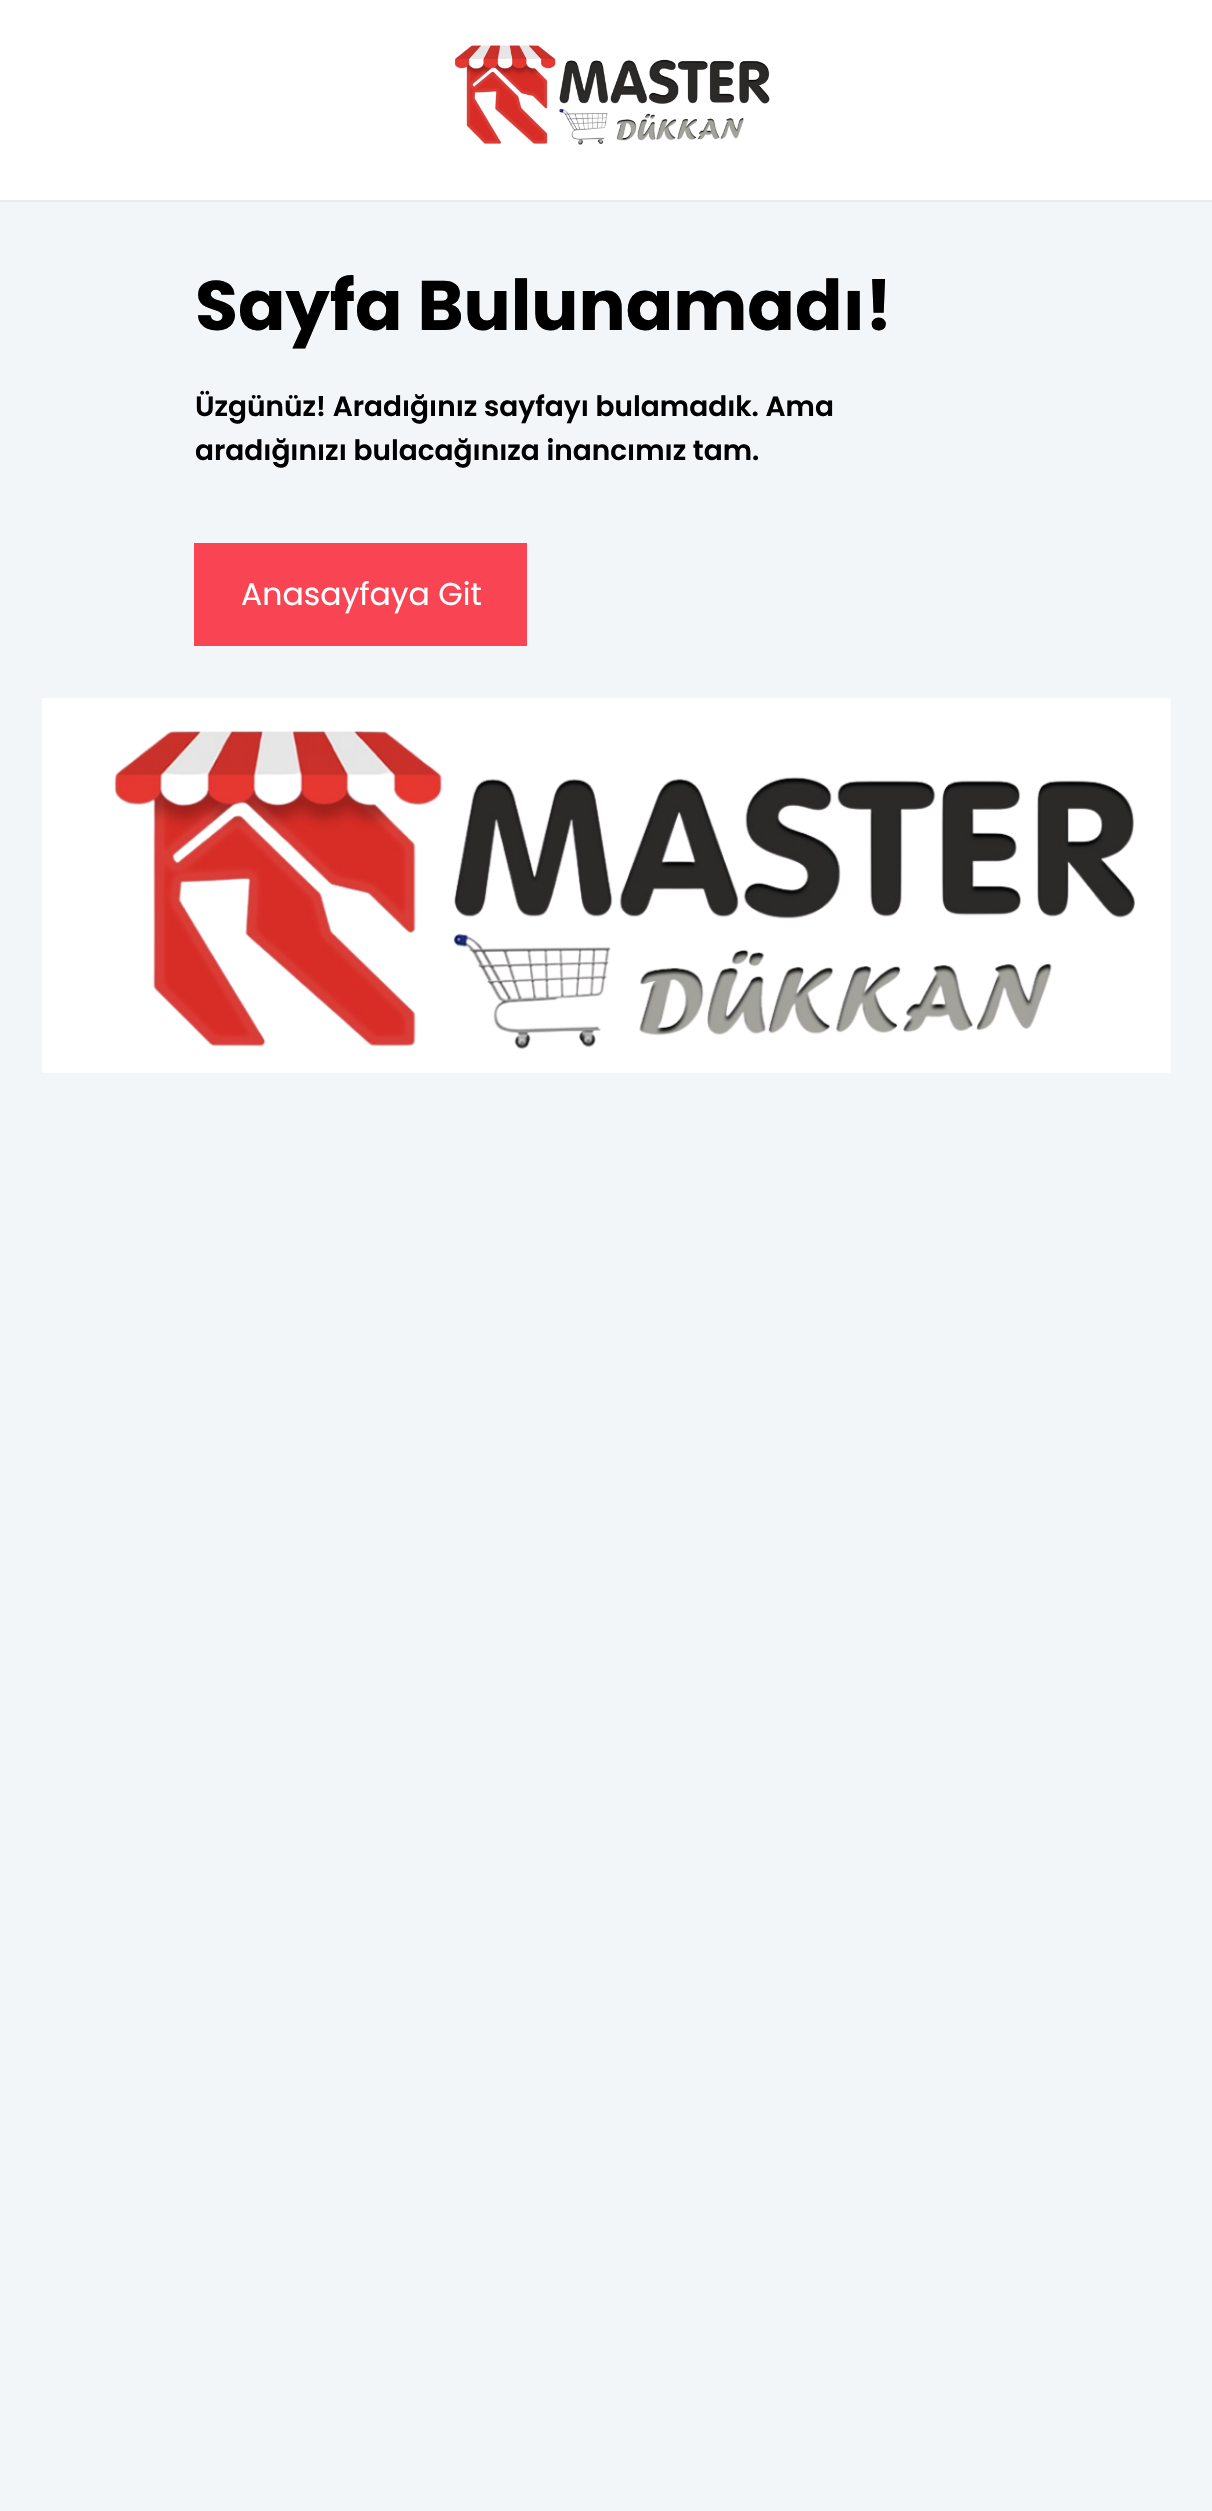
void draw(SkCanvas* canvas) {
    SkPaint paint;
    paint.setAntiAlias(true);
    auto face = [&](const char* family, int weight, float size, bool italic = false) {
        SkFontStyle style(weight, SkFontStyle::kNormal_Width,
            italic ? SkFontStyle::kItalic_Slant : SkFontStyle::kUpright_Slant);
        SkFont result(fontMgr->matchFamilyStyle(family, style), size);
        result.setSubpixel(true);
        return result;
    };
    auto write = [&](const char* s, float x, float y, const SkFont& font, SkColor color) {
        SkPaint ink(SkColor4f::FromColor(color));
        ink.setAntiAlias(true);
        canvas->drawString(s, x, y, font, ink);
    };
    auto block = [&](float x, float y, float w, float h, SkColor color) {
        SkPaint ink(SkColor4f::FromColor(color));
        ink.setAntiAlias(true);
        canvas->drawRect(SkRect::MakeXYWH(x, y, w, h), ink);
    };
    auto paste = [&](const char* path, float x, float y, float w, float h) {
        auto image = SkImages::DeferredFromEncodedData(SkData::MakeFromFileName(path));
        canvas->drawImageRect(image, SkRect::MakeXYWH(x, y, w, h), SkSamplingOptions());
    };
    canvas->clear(SkColorSetRGB(243, 246, 249));
    block(0, 0, 1212, 200, SK_ColorWHITE);
    block(0, 200, 1212, 2, SkColorSetRGB(235, 235, 235));
    paste("pic1.png", 454, 45, 316, 100);
    auto kFont1 = face("Poppins", 700, 70);
    write("Sayfa Bulunamadı!", 195, 330, kFont1, SK_ColorBLACK);
    auto kFont2 = face("Poppins", 600, 28);
    write("Üzgünüz! Aradığınız sayfayı bulamadık. Ama", 195, 416, kFont2, SK_ColorBLACK);
    write("aradığınızı bulacağınıza inancımız tam.", 195, 460, kFont2, SK_ColorBLACK);
    block(194, 543, 333, 103, SkColorSetRGB(249, 68, 83));
    auto kFont3 = face("Poppins", 400, 31.5f);
    write("Anasayfaya Git", 241, 605, kFont3, SK_ColorWHITE);
    paste("pic2.png", 42, 698, 1129, 375);
}
